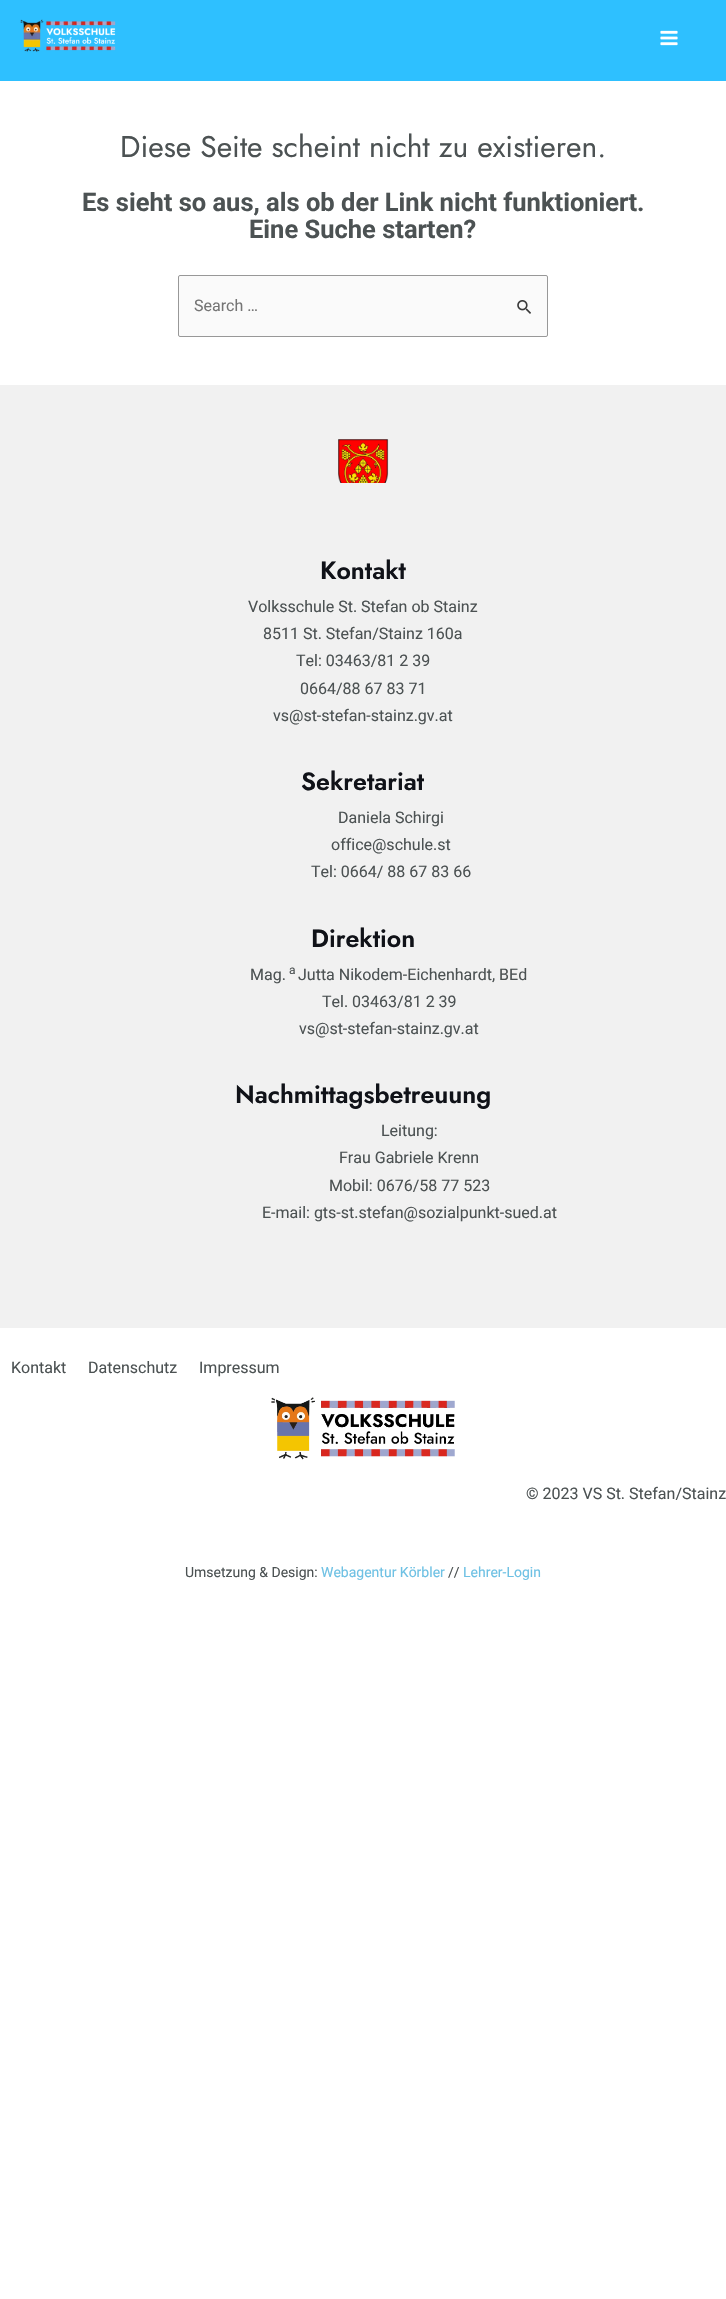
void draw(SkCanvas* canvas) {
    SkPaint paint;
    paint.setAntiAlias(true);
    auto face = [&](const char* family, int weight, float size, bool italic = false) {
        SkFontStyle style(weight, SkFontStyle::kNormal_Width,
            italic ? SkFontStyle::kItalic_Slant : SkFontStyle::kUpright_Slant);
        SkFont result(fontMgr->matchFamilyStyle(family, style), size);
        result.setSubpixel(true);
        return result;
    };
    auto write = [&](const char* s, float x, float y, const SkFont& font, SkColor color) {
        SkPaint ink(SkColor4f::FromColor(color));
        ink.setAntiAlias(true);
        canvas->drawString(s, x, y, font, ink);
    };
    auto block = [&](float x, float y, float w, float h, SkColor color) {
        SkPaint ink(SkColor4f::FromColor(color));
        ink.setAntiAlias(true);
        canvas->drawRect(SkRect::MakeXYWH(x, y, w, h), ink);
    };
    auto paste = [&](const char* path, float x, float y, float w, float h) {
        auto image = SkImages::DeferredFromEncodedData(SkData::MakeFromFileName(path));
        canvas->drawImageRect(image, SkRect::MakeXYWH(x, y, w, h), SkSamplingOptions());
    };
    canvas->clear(SK_ColorWHITE);
    block(0, 0, 726, 81, SkColorSetRGB(46, 192, 255));
    paste("pic1.png", 20, 19, 96, 33);
    paste("pic2.png", 660, 30, 18, 16);
    auto kFont1 = face("Jost", 400, 30);
    write("Diese Seite scheint nicht zu existieren.", 120, 157, kFont1, SkColorSetRGB(76, 82, 83));
    auto kFont2 = face("Roboto", 700, 25.5f);
    write("Es sieht so aus, als ob der Link nicht funktioniert.", 82, 211, kFont2, SkColorSetRGB(76, 82, 83));
    write("Eine Suche starten?", 249, 238, kFont2, SkColorSetRGB(76, 82, 83));
    paint.setColor(SkColorSetRGB(250, 250, 250));
    canvas->drawRoundRect(SkRect::MakeXYWH(178.5f, 275.5f, 369, 61), 1.5f, 1.5f, paint);
    paint.setStyle(SkPaint::kStroke_Style);
    paint.setStrokeWidth(1);
    paint.setColor(SkColorSetRGB(152, 152, 152));
    canvas->drawRoundRect(SkRect::MakeXYWH(178.5f, 275.5f, 369, 61), 1.5f, 1.5f, paint);
    auto kFont3 = face("Roboto", 400, 16);
    write("Search …", 194, 311, kFont3, SkColorSetRGB(117, 117, 117));
    paste("pic3.png", 517, 300, 14, 14);
    block(0, 385, 726, 943, SkColorSetRGB(241, 241, 241));
    paste("pic4.png", 338, 439, 51, 44);
    auto kFont4 = face("Jost", 600, 25);
    write("Kontakt", 320, 579, kFont4, SkColorSetRGB(16, 18, 24));
    write("Volksschule St. Stefan ob Stainz", 248, 612, kFont3, SkColorSetRGB(76, 82, 83));
    write("8511 St. Stefan/Stainz 160a", 263, 639, kFont3, SkColorSetRGB(76, 82, 83));
    write("Tel: 03463/81 2 39", 296, 666, kFont3, SkColorSetRGB(76, 82, 83));
    write("0664/88 67 83 71", 300, 694, kFont3, SkColorSetRGB(76, 82, 83));
    write("vs@st-stefan-stainz.gv.at", 273, 721, kFont3, SkColorSetRGB(76, 82, 83));
    write("Sekretariat", 301, 790, kFont4, SkColorSetRGB(16, 18, 24));
    write("Daniela Schirgi", 338, 823, kFont3, SkColorSetRGB(76, 82, 83));
    write("office@schule.st", 331, 850, kFont3, SkColorSetRGB(76, 82, 83));
    write("Tel: 0664/ 88 67 83 66", 311, 877, kFont3, SkColorSetRGB(76, 82, 83));
    write("Direktion", 311, 947, kFont4, SkColorSetRGB(16, 18, 24));
    write("Mag.", 250, 980, kFont3, SkColorSetRGB(76, 82, 83));
    auto kFont5 = face("Roboto", 400, 12);
    write("a", 289, 974, kFont5, SkColorSetRGB(76, 82, 83));
    write("Jutta Nikodem-Eichenhardt, BEd", 298, 980, kFont3, SkColorSetRGB(76, 82, 83));
    write("Tel. 03463/81 2 39", 322, 1007, kFont3, SkColorSetRGB(76, 82, 83));
    write("vs@st-stefan-stainz.gv.at", 299, 1034, kFont3, SkColorSetRGB(76, 82, 83));
    write("Nachmittagsbetreuung", 235, 1103, kFont4, SkColorSetRGB(16, 18, 24));
    write("Leitung:", 381, 1136, kFont3, SkColorSetRGB(76, 82, 83));
    write("Frau Gabriele Krenn", 339, 1163, kFont3, SkColorSetRGB(76, 82, 83));
    write("Mobil: 0676/58 77 523", 329, 1191, kFont3, SkColorSetRGB(76, 82, 83));
    write("E-mail: gts-st.stefan@sozialpunkt-sued.at", 262, 1218, kFont3, SkColorSetRGB(76, 82, 83));
    write("Kontakt", 11, 1373, kFont3, SkColorSetRGB(76, 82, 83));
    write("Datenschutz", 88, 1373, kFont3, SkColorSetRGB(76, 82, 83));
    write("Impressum", 199, 1373, kFont3, SkColorSetRGB(76, 82, 83));
    paste("pic5.png", 271, 1397, 184, 63);
    write("© 2023 VS St. Stefan/Stainz", 526, 1499, kFont3, SkColorSetRGB(76, 82, 83));
    auto kFont6 = face("Roboto", 400, 14);
    write("Umsetzung & Design:", 185, 1577, kFont6, SkColorSetRGB(76, 82, 83));
    write("Webagentur Körbler", 321, 1577, kFont6, SkColorSetRGB(110, 193, 228));
    write("//", 448, 1577, kFont6, SkColorSetRGB(76, 82, 83));
    write("Lehrer-Login", 463, 1577, kFont6, SkColorSetRGB(110, 193, 228));
}
